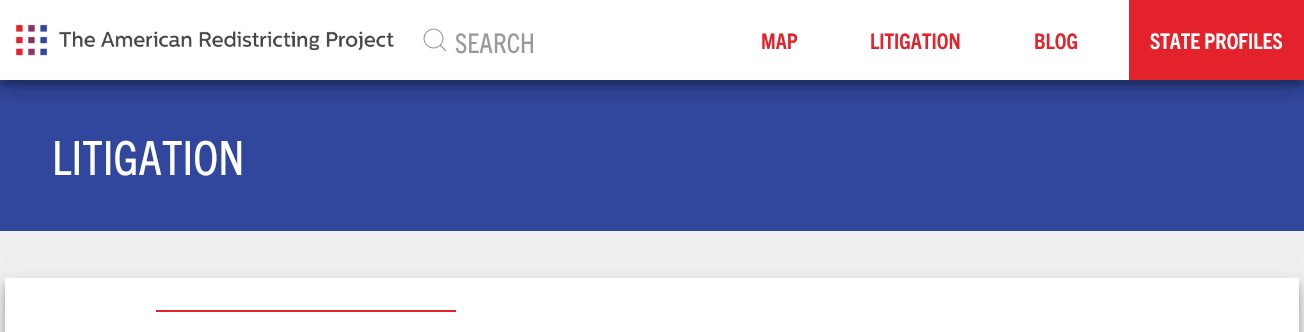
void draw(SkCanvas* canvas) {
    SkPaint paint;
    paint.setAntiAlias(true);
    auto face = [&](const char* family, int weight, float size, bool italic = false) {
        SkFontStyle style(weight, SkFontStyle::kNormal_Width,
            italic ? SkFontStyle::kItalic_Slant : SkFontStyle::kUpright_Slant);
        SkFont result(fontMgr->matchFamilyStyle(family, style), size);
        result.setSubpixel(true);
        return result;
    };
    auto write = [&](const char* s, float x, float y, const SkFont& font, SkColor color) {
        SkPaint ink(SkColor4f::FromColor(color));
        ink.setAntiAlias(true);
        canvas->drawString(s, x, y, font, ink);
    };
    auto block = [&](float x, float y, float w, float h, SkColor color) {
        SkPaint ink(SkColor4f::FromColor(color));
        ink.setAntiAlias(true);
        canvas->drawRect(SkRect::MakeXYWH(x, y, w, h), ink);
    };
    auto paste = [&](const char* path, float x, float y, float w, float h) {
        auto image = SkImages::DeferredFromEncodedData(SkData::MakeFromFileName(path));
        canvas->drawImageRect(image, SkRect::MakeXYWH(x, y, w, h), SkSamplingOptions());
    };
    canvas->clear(SK_ColorWHITE);
    block(0, 80, 1304, 151, SkColorSetRGB(49, 70, 157));
    canvas->save();
    canvas->clipRect(SkRect::MakeXYWH(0, 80, 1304, 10));
    paint.setColor(SkColorSetARGB(59, 0, 0, 0));
    paint.setMaskFilter(SkMaskFilter::MakeBlur(kNormal_SkBlurStyle, 3));
    canvas->drawRect(SkRect::MakeXYWH(0, 6, 1304, 80), paint);
    paint.setMaskFilter(nullptr);
    canvas->restore();
    canvas->save();
    canvas->clipRect(SkRect::MakeXYWH(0, 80, 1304, 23));
    paint.setColor(SkColorSetARGB(48, 0, 0, 0));
    paint.setMaskFilter(SkMaskFilter::MakeBlur(kNormal_SkBlurStyle, 10));
    canvas->drawRect(SkRect::MakeXYWH(0, 10, 1304, 80), paint);
    paint.setMaskFilter(nullptr);
    canvas->restore();
    paste("pic1.png", 16, 24, 378, 32);
    paint.setStyle(SkPaint::kStroke_Style);
    paint.setStrokeWidth(1.1f);
    paint.setColor(SkColorSetRGB(153, 153, 153));
    canvas->drawCircle(433.5f, 38.5f, 9.5f, paint);
    canvas->drawPath(SkPathBuilder().moveTo(446, 51).lineTo(440, 45).detach(), paint);
    auto kFont1 = face("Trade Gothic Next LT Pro", 400, 27);
    write("SEARCH", 455, 53, kFont1, SkColorSetRGB(153, 153, 153));
    auto kFont2 = face("Trade Gothic Next LT Pro", 700, 21.5f);
    write("MAP", 761, 49, kFont2, SkColorSetRGB(228, 34, 43));
    write("LITIGATION", 870, 49, kFont2, SkColorSetRGB(228, 34, 43));
    write("BLOG", 1034, 49, kFont2, SkColorSetRGB(228, 34, 43));
    block(1129, 0, 175, 80, SkColorSetRGB(228, 34, 43));
    write("STATE PROFILES", 1150, 49, kFont2, SK_ColorWHITE);
    auto kFont3 = face("Trade Gothic Next LT Pro", 400, 47.25f);
    write("LITIGATION", 52, 175, kFont3, SK_ColorWHITE);
    block(0, 231, 1304, 101, SkColorSetRGB(239, 239, 239));
    paint.setStyle(SkPaint::kFill_Style);
    paint.setColor(SkColorSetARGB(59, 0, 0, 0));
    paint.setMaskFilter(SkMaskFilter::MakeBlur(kNormal_SkBlurStyle, 3));
    canvas->drawRect(SkRect::MakeXYWH(5, 284, 1294, 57), paint);
    paint.setMaskFilter(nullptr);
    paint.setColor(SkColorSetARGB(48, 0, 0, 0));
    paint.setMaskFilter(SkMaskFilter::MakeBlur(kNormal_SkBlurStyle, 10));
    canvas->drawRect(SkRect::MakeXYWH(5, 288, 1294, 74), paint);
    paint.setMaskFilter(nullptr);
    block(5, 278, 1294, 54, SK_ColorWHITE);
    block(156, 310, 300, 2, SkColorSetRGB(228, 34, 43));
}
